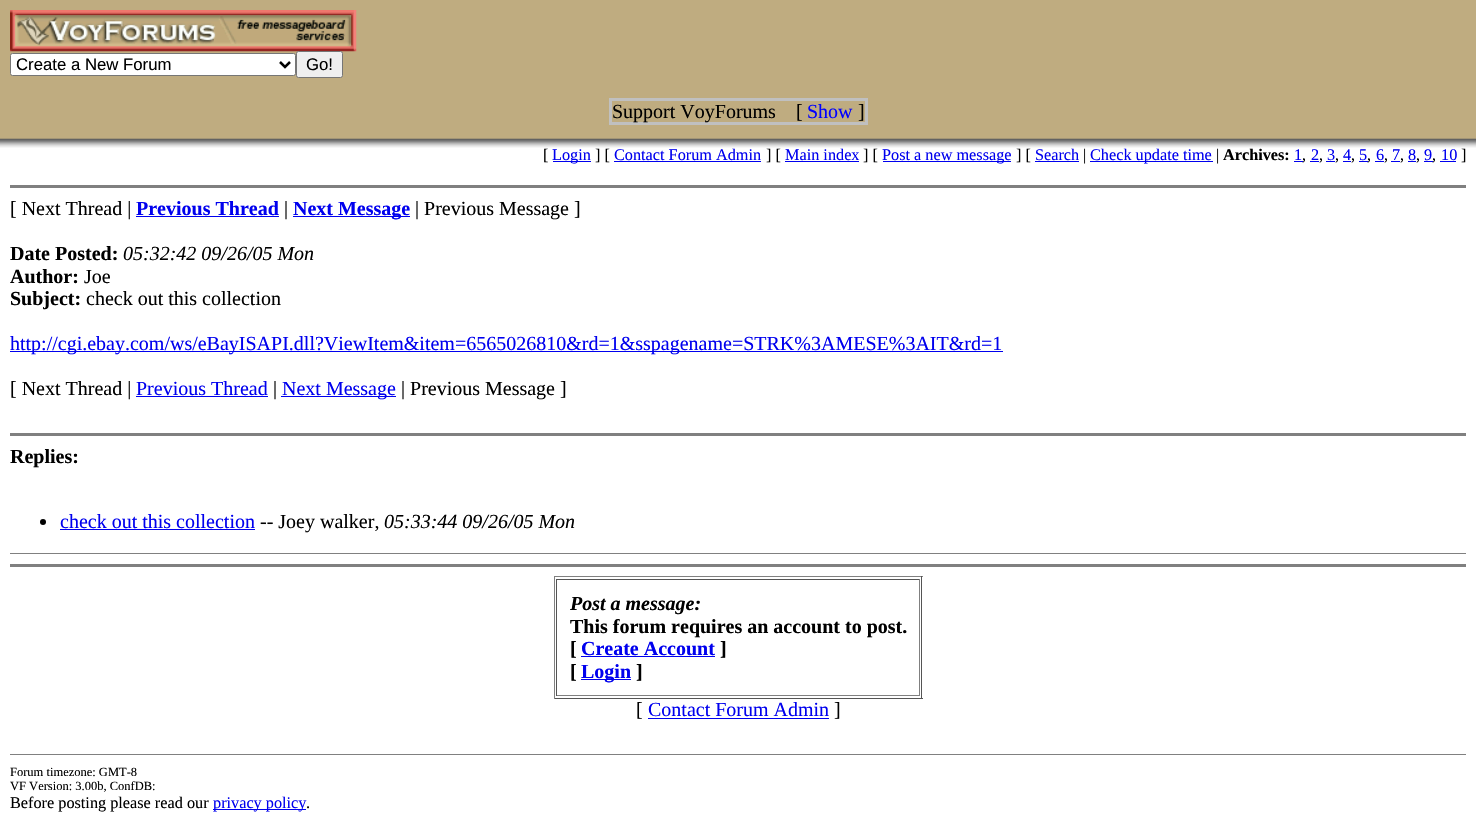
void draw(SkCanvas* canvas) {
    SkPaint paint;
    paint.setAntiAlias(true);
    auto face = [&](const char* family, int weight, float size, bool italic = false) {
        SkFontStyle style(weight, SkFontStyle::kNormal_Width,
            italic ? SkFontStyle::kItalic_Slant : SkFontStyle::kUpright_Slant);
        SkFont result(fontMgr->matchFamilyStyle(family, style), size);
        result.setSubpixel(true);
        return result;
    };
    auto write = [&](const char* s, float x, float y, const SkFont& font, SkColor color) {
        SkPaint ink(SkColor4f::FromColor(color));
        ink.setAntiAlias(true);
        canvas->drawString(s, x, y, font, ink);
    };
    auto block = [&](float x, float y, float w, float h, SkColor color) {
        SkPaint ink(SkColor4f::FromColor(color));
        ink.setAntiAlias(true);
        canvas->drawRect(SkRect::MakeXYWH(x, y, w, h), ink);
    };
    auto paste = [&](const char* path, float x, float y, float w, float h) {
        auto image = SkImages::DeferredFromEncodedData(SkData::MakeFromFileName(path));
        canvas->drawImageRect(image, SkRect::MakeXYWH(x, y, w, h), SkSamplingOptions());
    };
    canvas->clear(SK_ColorWHITE);
    paste("pic1.png", 0, 0, 1476, 148);
    paste("pic2.png", 10, 10, 347, 42);
    paint.setColor(SK_ColorWHITE);
    canvas->drawRoundRect(SkRect::MakeXYWH(10.5f, 53.5f, 285, 22), 2, 2, paint);
    paint.setStyle(SkPaint::kStroke_Style);
    paint.setStrokeWidth(1);
    paint.setColor(SkColorSetRGB(118, 118, 118));
    canvas->drawRoundRect(SkRect::MakeXYWH(10.5f, 53.5f, 285, 22), 2, 2, paint);
    paint.setStrokeWidth(2.5f);
    paint.setColor(SK_ColorBLACK);
    canvas->drawPath(SkPathBuilder().moveTo(280, 62).lineTo(285, 67).lineTo(290, 62).detach(), paint);
    auto kFont1 = face("Liberation Sans", 400, 16.75f);
    write("Create a New Forum", 16, 70, kFont1, SK_ColorBLACK);
    paint.setStyle(SkPaint::kFill_Style);
    paint.setColor(SkColorSetRGB(239, 239, 239));
    canvas->drawRoundRect(SkRect::MakeXYWH(296.5f, 51.5f, 46, 26), 2, 2, paint);
    paint.setStyle(SkPaint::kStroke_Style);
    paint.setStrokeWidth(1);
    paint.setColor(SkColorSetRGB(118, 118, 118));
    canvas->drawRoundRect(SkRect::MakeXYWH(296.5f, 51.5f, 46, 26), 2, 2, paint);
    write("Go!", 306, 70, kFont1, SK_ColorBLACK);
    paint.setStrokeWidth(3);
    paint.setColor(SkColorSetRGB(192, 192, 192));
    canvas->drawRect(SkRect::MakeXYWH(610.5f, 99.5f, 256, 24), paint);
    auto kFont2 = face("Liberation Serif", 400, 20);
    write("Support VoyForums", 612, 118, kFont2, SK_ColorBLACK);
    write("[", 796, 118, kFont2, SK_ColorBLACK);
    write("Show", 807, 118, kFont2, SkColorSetRGB(0, 0, 255));
    write("]", 858, 118, kFont2, SK_ColorBLACK);
    auto kFont3 = face("Liberation Serif", 400, 16.25f);
    write("[", 543, 160, kFont3, SK_ColorBLACK);
    block(553, 161, 38, 1, SkColorSetRGB(0, 0, 238));
    write("Login", 552, 160, kFont3, SkColorSetRGB(0, 0, 238));
    write("] [", 595, 160, kFont3, SK_ColorBLACK);
    write("Contact Forum Admin", 614, 160, kFont3, SkColorSetRGB(0, 0, 238));
    block(614, 161, 147, 1, SkColorSetRGB(0, 0, 238));
    write("] [", 766, 160, kFont3, SK_ColorBLACK);
    write("Main index", 785, 160, kFont3, SkColorSetRGB(0, 0, 238));
    block(785, 161, 74, 1, SkColorSetRGB(0, 0, 238));
    write("] [", 863, 160, kFont3, SK_ColorBLACK);
    block(883, 161, 128, 1, SkColorSetRGB(0, 0, 238));
    write("Post a new message", 882, 160, kFont3, SkColorSetRGB(0, 0, 238));
    write("] [", 1016, 160, kFont3, SK_ColorBLACK);
    write("Search", 1035, 160, kFont3, SkColorSetRGB(0, 0, 238));
    block(1035, 161, 44, 1, SkColorSetRGB(0, 0, 238));
    write("|", 1083, 160, kFont3, SK_ColorBLACK);
    block(1090, 161, 123, 1, SkColorSetRGB(0, 0, 238));
    write("Check update time", 1090, 160, kFont3, SkColorSetRGB(0, 0, 238));
    write("|", 1216, 160, kFont3, SK_ColorBLACK);
    auto kFont4 = face("Liberation Serif", 700, 16.25f);
    write("Archives:", 1223, 160, kFont4, SK_ColorBLACK);
    write("1", 1294, 160, kFont3, SkColorSetRGB(0, 0, 238));
    write(",", 1302, 160, kFont3, SK_ColorBLACK);
    block(1294, 161, 9, 1, SkColorSetRGB(0, 0, 238));
    write("2", 1311, 160, kFont3, SkColorSetRGB(0, 0, 238));
    write(",", 1319, 160, kFont3, SK_ColorBLACK);
    block(1310, 161, 9, 1, SkColorSetRGB(0, 0, 238));
    write("3", 1327, 160, kFont3, SkColorSetRGB(0, 0, 238));
    write(",", 1335, 160, kFont3, SK_ColorBLACK);
    block(1326, 161, 9, 1, SkColorSetRGB(0, 0, 238));
    write("4", 1343, 160, kFont3, SkColorSetRGB(0, 0, 238));
    write(",", 1351, 160, kFont3, SK_ColorBLACK);
    block(1343, 161, 8, 1, SkColorSetRGB(0, 0, 238));
    write("5", 1359, 160, kFont3, SkColorSetRGB(0, 0, 238));
    write(",", 1367, 160, kFont3, SK_ColorBLACK);
    block(1359, 161, 9, 1, SkColorSetRGB(0, 0, 238));
    write("6", 1376, 160, kFont3, SkColorSetRGB(0, 0, 238));
    write(",", 1384, 160, kFont3, SK_ColorBLACK);
    block(1375, 161, 9, 1, SkColorSetRGB(0, 0, 238));
    write("7", 1392, 160, kFont3, SkColorSetRGB(0, 0, 238));
    write(",", 1400, 160, kFont3, SK_ColorBLACK);
    block(1391, 161, 9, 1, SkColorSetRGB(0, 0, 238));
    write("8", 1408, 160, kFont3, SkColorSetRGB(0, 0, 238));
    write(",", 1416, 160, kFont3, SK_ColorBLACK);
    block(1408, 161, 8, 1, SkColorSetRGB(0, 0, 238));
    write("9", 1424, 160, kFont3, SkColorSetRGB(0, 0, 238));
    write(",", 1432, 160, kFont3, SK_ColorBLACK);
    block(1424, 161, 9, 1, SkColorSetRGB(0, 0, 238));
    block(1440, 161, 16, 1, SkColorSetRGB(0, 0, 238));
    write("10", 1441, 160, kFont3, SkColorSetRGB(0, 0, 238));
    write("]", 1461, 160, kFont3, SK_ColorBLACK);
    block(10, 185, 1456, 3, SkColorSetRGB(128, 128, 128));
    write("[ Next Thread |", 10, 215, kFont2, SK_ColorBLACK);
    auto kFont5 = face("Liberation Serif", 700, 20);
    write("Previous Thread", 136, 215, kFont5, SkColorSetRGB(0, 0, 238));
    block(136, 216, 143, 1, SkColorSetRGB(0, 0, 238));
    write("|", 284, 215, kFont2, SK_ColorBLACK);
    block(293, 216, 117, 1, SkColorSetRGB(0, 0, 238));
    write("Next Message", 293, 215, kFont5, SkColorSetRGB(0, 0, 238));
    write("| Previous Message ]", 415, 215, kFont2, SK_ColorBLACK);
    write("Date Posted:", 10, 260, kFont5, SK_ColorBLACK);
    auto kFont6 = face("Liberation Serif", 400, 20, true);
    write("05:32:42 09/26/05 Mon", 123, 260, kFont6, SK_ColorBLACK);
    write("Author:", 10, 283, kFont5, SK_ColorBLACK);
    write("Joe", 84, 283, kFont2, SK_ColorBLACK);
    write("Subject:", 10, 305, kFont5, SK_ColorBLACK);
    write("check out this collection", 86, 305, kFont2, SK_ColorBLACK);
    block(10, 351, 993, 1, SkColorSetRGB(0, 0, 238));
    write("http://cgi.ebay.com/ws/eBayISAPI.dll?ViewItem&item=6565026810&rd=1&sspagename=STRK%3AMESE%3AIT&rd=1", 10, 350, kFont2, SkColorSetRGB(0, 0, 238));
    write("[ Next Thread |", 10, 395, kFont2, SK_ColorBLACK);
    write("Previous Thread", 136, 395, kFont2, SkColorSetRGB(0, 0, 238));
    block(136, 396, 132, 1, SkColorSetRGB(0, 0, 238));
    write("|", 273, 395, kFont2, SK_ColorBLACK);
    block(281, 396, 115, 1, SkColorSetRGB(0, 0, 238));
    write("Next Message", 282, 395, kFont2, SkColorSetRGB(0, 0, 238));
    write("| Previous Message ]", 401, 395, kFont2, SK_ColorBLACK);
    block(10, 433, 1456, 3, SkColorSetRGB(128, 128, 128));
    write("Replies:", 10, 463, kFont5, SK_ColorBLACK);
    paint.setStyle(SkPaint::kFill_Style);
    paint.setColor(SK_ColorBLACK);
    canvas->drawCircle(43, 522, 3, paint);
    write("check out this collection", 60, 528, kFont2, SkColorSetRGB(0, 0, 238));
    block(60, 529, 195, 1, SkColorSetRGB(0, 0, 238));
    write("-- Joey walker,", 260, 528, kFont2, SK_ColorBLACK);
    write("05:33:44 09/26/05 Mon", 384, 528, kFont6, SK_ColorBLACK);
    block(10, 553, 1456, 1, SkColorSetRGB(128, 128, 128));
    block(10, 564, 1456, 3, SkColorSetRGB(128, 128, 128));
    block(554, 576, 369, 1, SkColorSetRGB(128, 128, 128));
    block(921, 576, 1, 123, SkColorSetRGB(85, 85, 85));
    block(554, 698, 369, 1, SkColorSetRGB(85, 85, 85));
    block(554, 576, 1, 123, SkColorSetRGB(128, 128, 128));
    block(556, 579, 364, 1, SkColorSetRGB(85, 85, 85));
    block(919, 579, 1, 117, SkColorSetRGB(128, 128, 128));
    block(556, 695, 364, 1, SkColorSetRGB(128, 128, 128));
    block(556, 579, 1, 117, SkColorSetRGB(85, 85, 85));
    auto kFont7 = face("Liberation Serif", 700, 20, true);
    write("Post a message:", 570, 610, kFont7, SK_ColorBLACK);
    write("This forum requires an account to post.", 570, 633, kFont5, SK_ColorBLACK);
    write("[", 570, 655, kFont5, SK_ColorBLACK);
    write("Create Account", 581, 655, kFont5, SkColorSetRGB(0, 0, 238));
    block(581, 656, 134, 1, SkColorSetRGB(0, 0, 238));
    write("]", 720, 655, kFont5, SK_ColorBLACK);
    write("[", 570, 678, kFont5, SK_ColorBLACK);
    block(581, 679, 50, 1, SkColorSetRGB(0, 0, 238));
    write("Login", 581, 678, kFont5, SkColorSetRGB(0, 0, 238));
    write("]", 636, 678, kFont5, SK_ColorBLACK);
    write("[", 636, 716, kFont2, SK_ColorBLACK);
    write("Contact Forum Admin", 648, 716, kFont2, SkColorSetRGB(0, 0, 238));
    block(648, 718, 181, 1, SkColorSetRGB(0, 0, 238));
    write("]", 834, 716, kFont2, SK_ColorBLACK);
    block(10, 754, 1456, 1, SkColorSetRGB(128, 128, 128));
    auto kFont8 = face("Liberation Serif", 400, 12.5f);
    write("Forum timezone: GMT-8", 10, 776, kFont8, SK_ColorBLACK);
    write("VF Version: 3.00b, ConfDB:", 10, 790, kFont8, SK_ColorBLACK);
    write("Before posting please read our", 10, 808, kFont3, SK_ColorBLACK);
    block(213, 809, 93, 1, SkColorSetRGB(0, 0, 238));
    write("privacy policy", 213, 808, kFont3, SkColorSetRGB(0, 0, 238));
    write(".", 306, 808, kFont3, SK_ColorBLACK);
}
